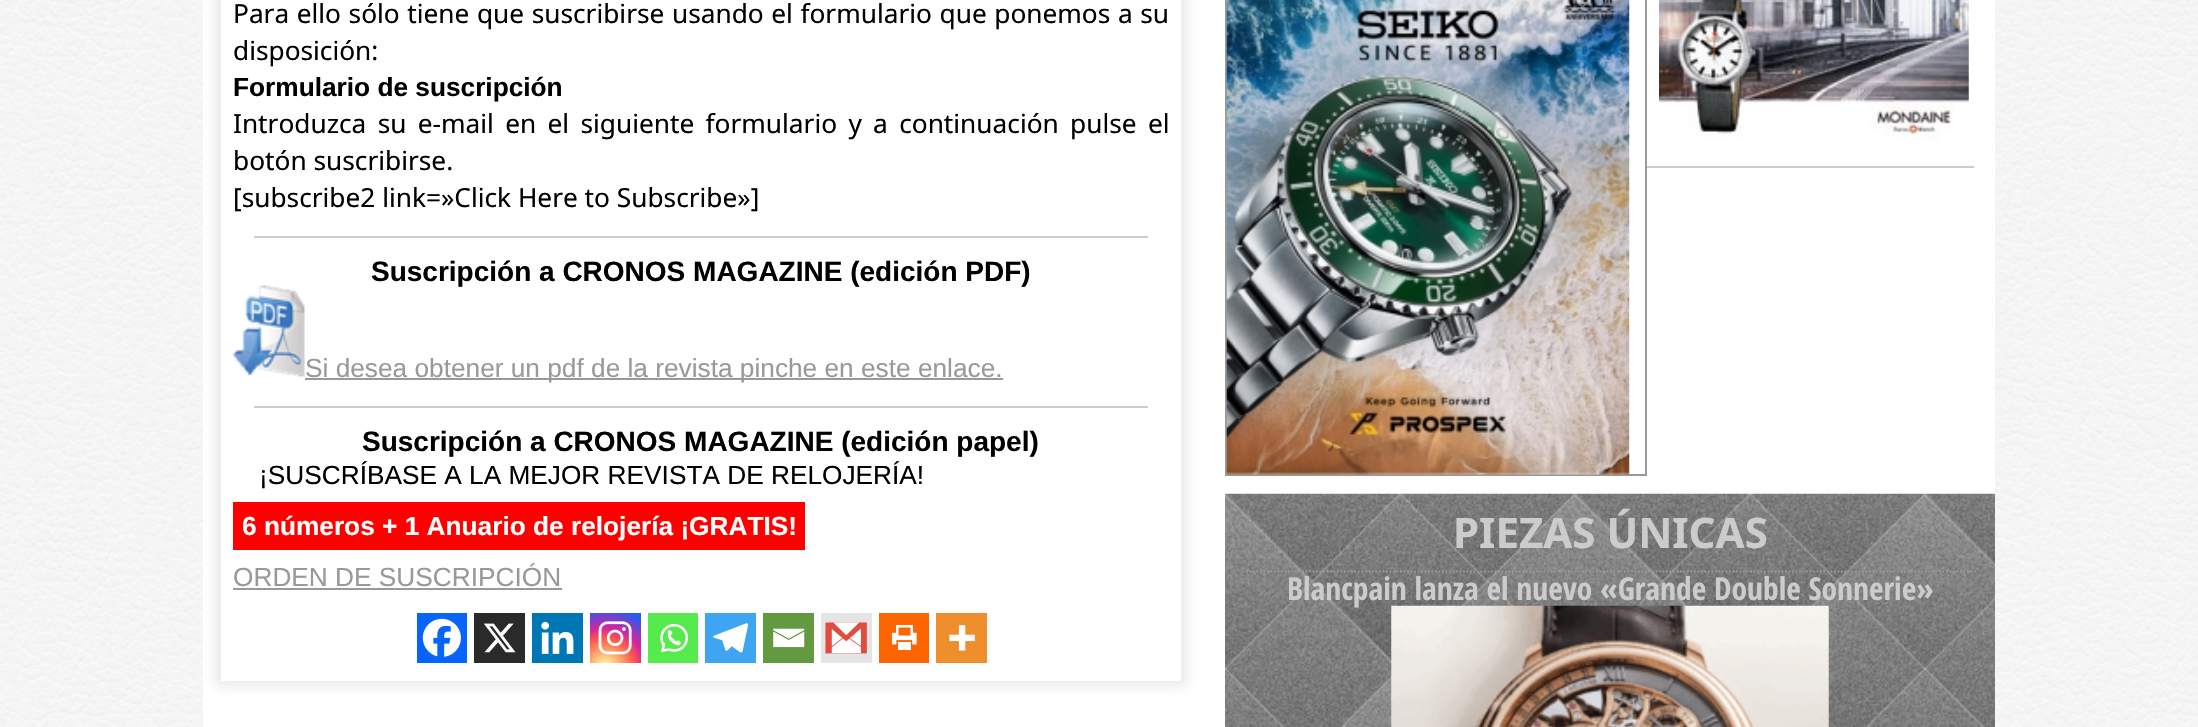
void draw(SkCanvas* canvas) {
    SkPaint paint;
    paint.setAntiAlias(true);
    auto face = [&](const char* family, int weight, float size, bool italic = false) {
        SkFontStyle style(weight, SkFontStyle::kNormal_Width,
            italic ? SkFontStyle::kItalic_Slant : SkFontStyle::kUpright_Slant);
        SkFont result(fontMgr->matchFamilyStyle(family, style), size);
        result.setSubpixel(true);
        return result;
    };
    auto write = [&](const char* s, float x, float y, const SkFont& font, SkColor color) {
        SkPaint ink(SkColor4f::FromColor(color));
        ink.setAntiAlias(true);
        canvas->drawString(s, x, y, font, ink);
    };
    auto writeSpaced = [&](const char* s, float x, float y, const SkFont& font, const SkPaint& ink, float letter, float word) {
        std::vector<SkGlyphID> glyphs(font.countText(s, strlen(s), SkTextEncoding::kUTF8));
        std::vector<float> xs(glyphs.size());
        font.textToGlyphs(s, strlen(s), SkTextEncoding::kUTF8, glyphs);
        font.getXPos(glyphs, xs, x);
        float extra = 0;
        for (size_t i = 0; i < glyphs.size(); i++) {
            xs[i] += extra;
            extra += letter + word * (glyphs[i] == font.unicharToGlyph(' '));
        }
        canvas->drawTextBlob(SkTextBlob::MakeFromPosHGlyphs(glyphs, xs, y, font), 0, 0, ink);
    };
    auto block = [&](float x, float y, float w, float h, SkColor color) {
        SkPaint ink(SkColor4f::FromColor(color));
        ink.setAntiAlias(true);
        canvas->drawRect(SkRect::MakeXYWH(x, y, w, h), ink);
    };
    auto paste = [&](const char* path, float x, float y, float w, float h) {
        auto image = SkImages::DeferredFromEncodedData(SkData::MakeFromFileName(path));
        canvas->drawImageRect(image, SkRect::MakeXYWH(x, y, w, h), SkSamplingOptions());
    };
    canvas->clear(SK_ColorWHITE);
    paste("pic1.png", 0, 0, 2198, 727);
    block(203, 0, 1792, 727, SK_ColorWHITE);
    paint.setColor(SkColorSetARGB(26, 51, 22, 22));
    paint.setMaskFilter(SkMaskFilter::MakeBlur(kNormal_SkBlurStyle, 6));
    canvas->drawRect(SkRect::MakeXYWH(215, -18, 972, 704), paint);
    paint.setMaskFilter(nullptr);
    block(221, 0, 960, 681, SK_ColorWHITE);
    auto kFont1 = face("Noto Sans", 400, 26.25f);
    paint.setColor(SK_ColorBLACK);
    writeSpaced("Para ello sólo tiene que suscribirse usando el formulario que ponemos a su", 233, 23, kFont1, paint, 0, 0.75f);
    write("disposición:", 233, 60, kFont1, SK_ColorBLACK);
    auto kFont2 = face("Liberation Sans", 700, 26.25f);
    write("Formulario de suscripción", 233, 96, kFont2, SK_ColorBLACK);
    writeSpaced("Introduzca su e-mail en el siguiente formulario y a continuación pulse el", 233, 133, kFont1, paint, 0, 4.5f);
    write("botón suscribirse.", 233, 170, kFont1, SK_ColorBLACK);
    write("[subscribe2 link=»Click Here to Subscribe»]", 233, 207, kFont1, SK_ColorBLACK);
    block(254, 236, 894, 2, SkColorSetRGB(204, 204, 204));
    auto kFont3 = face("Liberation Sans", 700, 28);
    write("Suscripción a CRONOS MAGAZINE (edición PDF)", 371, 281, kFont3, SK_ColorBLACK);
    paste("pic2.png", 232, 285, 73, 92);
    block(305, 378, 698, 2, SkColorSetRGB(153, 153, 153));
    auto kFont4 = face("Liberation Sans", 400, 26.25f);
    write("Si desea obtener un pdf de la revista pinche en este enlace.", 305, 377, kFont4, SkColorSetRGB(153, 153, 153));
    block(254, 406, 894, 2, SkColorSetRGB(204, 204, 204));
    write("Suscripción a CRONOS MAGAZINE (edición papel)", 362, 451, kFont3, SK_ColorBLACK);
    write("¡SUSCRÍBASE A LA MEJOR REVISTA DE RELOJERÍA!", 259, 484, kFont4, SK_ColorBLACK);
    block(233, 502, 572, 48, SkColorSetRGB(255, 0, 0));
    write("6 números + 1 Anuario de relojería ¡GRATIS!", 242, 535, kFont2, SK_ColorWHITE);
    write("ORDEN DE SUSCRIPCIÓN", 233, 586, kFont4, SkColorSetRGB(153, 153, 153));
    block(233, 588, 329, 2, SkColorSetRGB(153, 153, 153));
    block(417, 613, 50, 50, SkColorSetRGB(7, 101, 254));
    paste("pic3.png", 422, 618, 39, 39);
    block(474, 613, 51, 50, SkColorSetRGB(42, 42, 42));
    paste("pic4.png", 483, 623, 33, 30);
    block(532, 613, 51, 50, SkColorSetRGB(0, 119, 181));
    paste("pic5.png", 541, 621, 33, 33);
    {
        const SkColor colors[] = {SkColorSetRGB(253, 244, 151), SkColorSetRGB(253, 244, 151), SkColorSetRGB(253, 89, 73), SkColorSetRGB(214, 36, 159), SkColorSetRGB(40, 90, 235)};
        const float stops[] = {0, 0.05f, 0.45f, 0.6f, 0.9f};
        paint.setShader(SkGradientShader::MakeRadial({605, 667}, 65, colors, stops, 5, SkTileMode::kClamp));
        paint.setAlpha(255);
    }
    canvas->drawRect(SkRect::MakeXYWH(590, 613, 51, 50), paint);
    paste("pic6.png", 598, 621, 34, 34);
    block(648, 613, 50, 50, SkColorSetRGB(85, 235, 76));
    paste("pic7.png", 660, 623, 29, 29);
    block(705, 613, 51, 50, SkColorSetRGB(61, 165, 241));
    paste("pic8.png", 713, 623, 36, 30);
    block(763, 613, 51, 50, SkColorSetRGB(100, 154, 63));
    paste("pic9.png", 773, 628, 32, 20);
    block(821, 613, 51, 50, SkColorSetRGB(229, 229, 229));
    paste("pic10.png", 825, 622, 42, 32);
    block(879, 613, 50, 50, SkColorSetRGB(253, 101, 0));
    paste("pic11.png", 891, 625, 26, 25);
    block(936, 613, 51, 50, SkColorSetRGB(238, 142, 45));
    paste("pic12.png", 949, 625, 26, 26);
    paint.setStyle(SkPaint::kStroke_Style);
    paint.setStrokeWidth(2);
    paint.setShader(nullptr);
    paint.setColor(SkColorSetRGB(153, 153, 153));
    canvas->drawRect(SkRect::MakeXYWH(1226, -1, 420, 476), paint);
    paste("pic13.png", 1226, 0, 404, 475);
    paste("pic14.png", 1659, 0, 310, 140);
    block(1647, 166, 327, 2, SkColorSetRGB(204, 204, 204));
    paste("pic15.png", 1225, 493, 770, 234);
    paint.setStrokeWidth(1.8f);
    paint.setPathEffect(SkDashPathEffect::Make({{1.75f, 1.75f}}, 0));
    canvas->drawPath(SkPathBuilder().moveTo(1242.5f, 571.5f).lineTo(1977.5f, 571.5f).detach(), paint);
    paint.setPathEffect(nullptr);
    auto kFont5 = face("Noto Sans", 700, 42);
    write("PIEZAS ÚNICAS", 1453, 548, kFont5, SkColorSetRGB(204, 204, 204));
    auto kFont6 = face("Open Sans Condensed", 700, 31.5f);
    write("Blancpain lanza el nuevo «Grande Double Sonnerie»", 1287, 600, kFont6, SkColorSetRGB(204, 204, 204));
    paste("pic16.png", 1391, 605, 438, 122);
}
